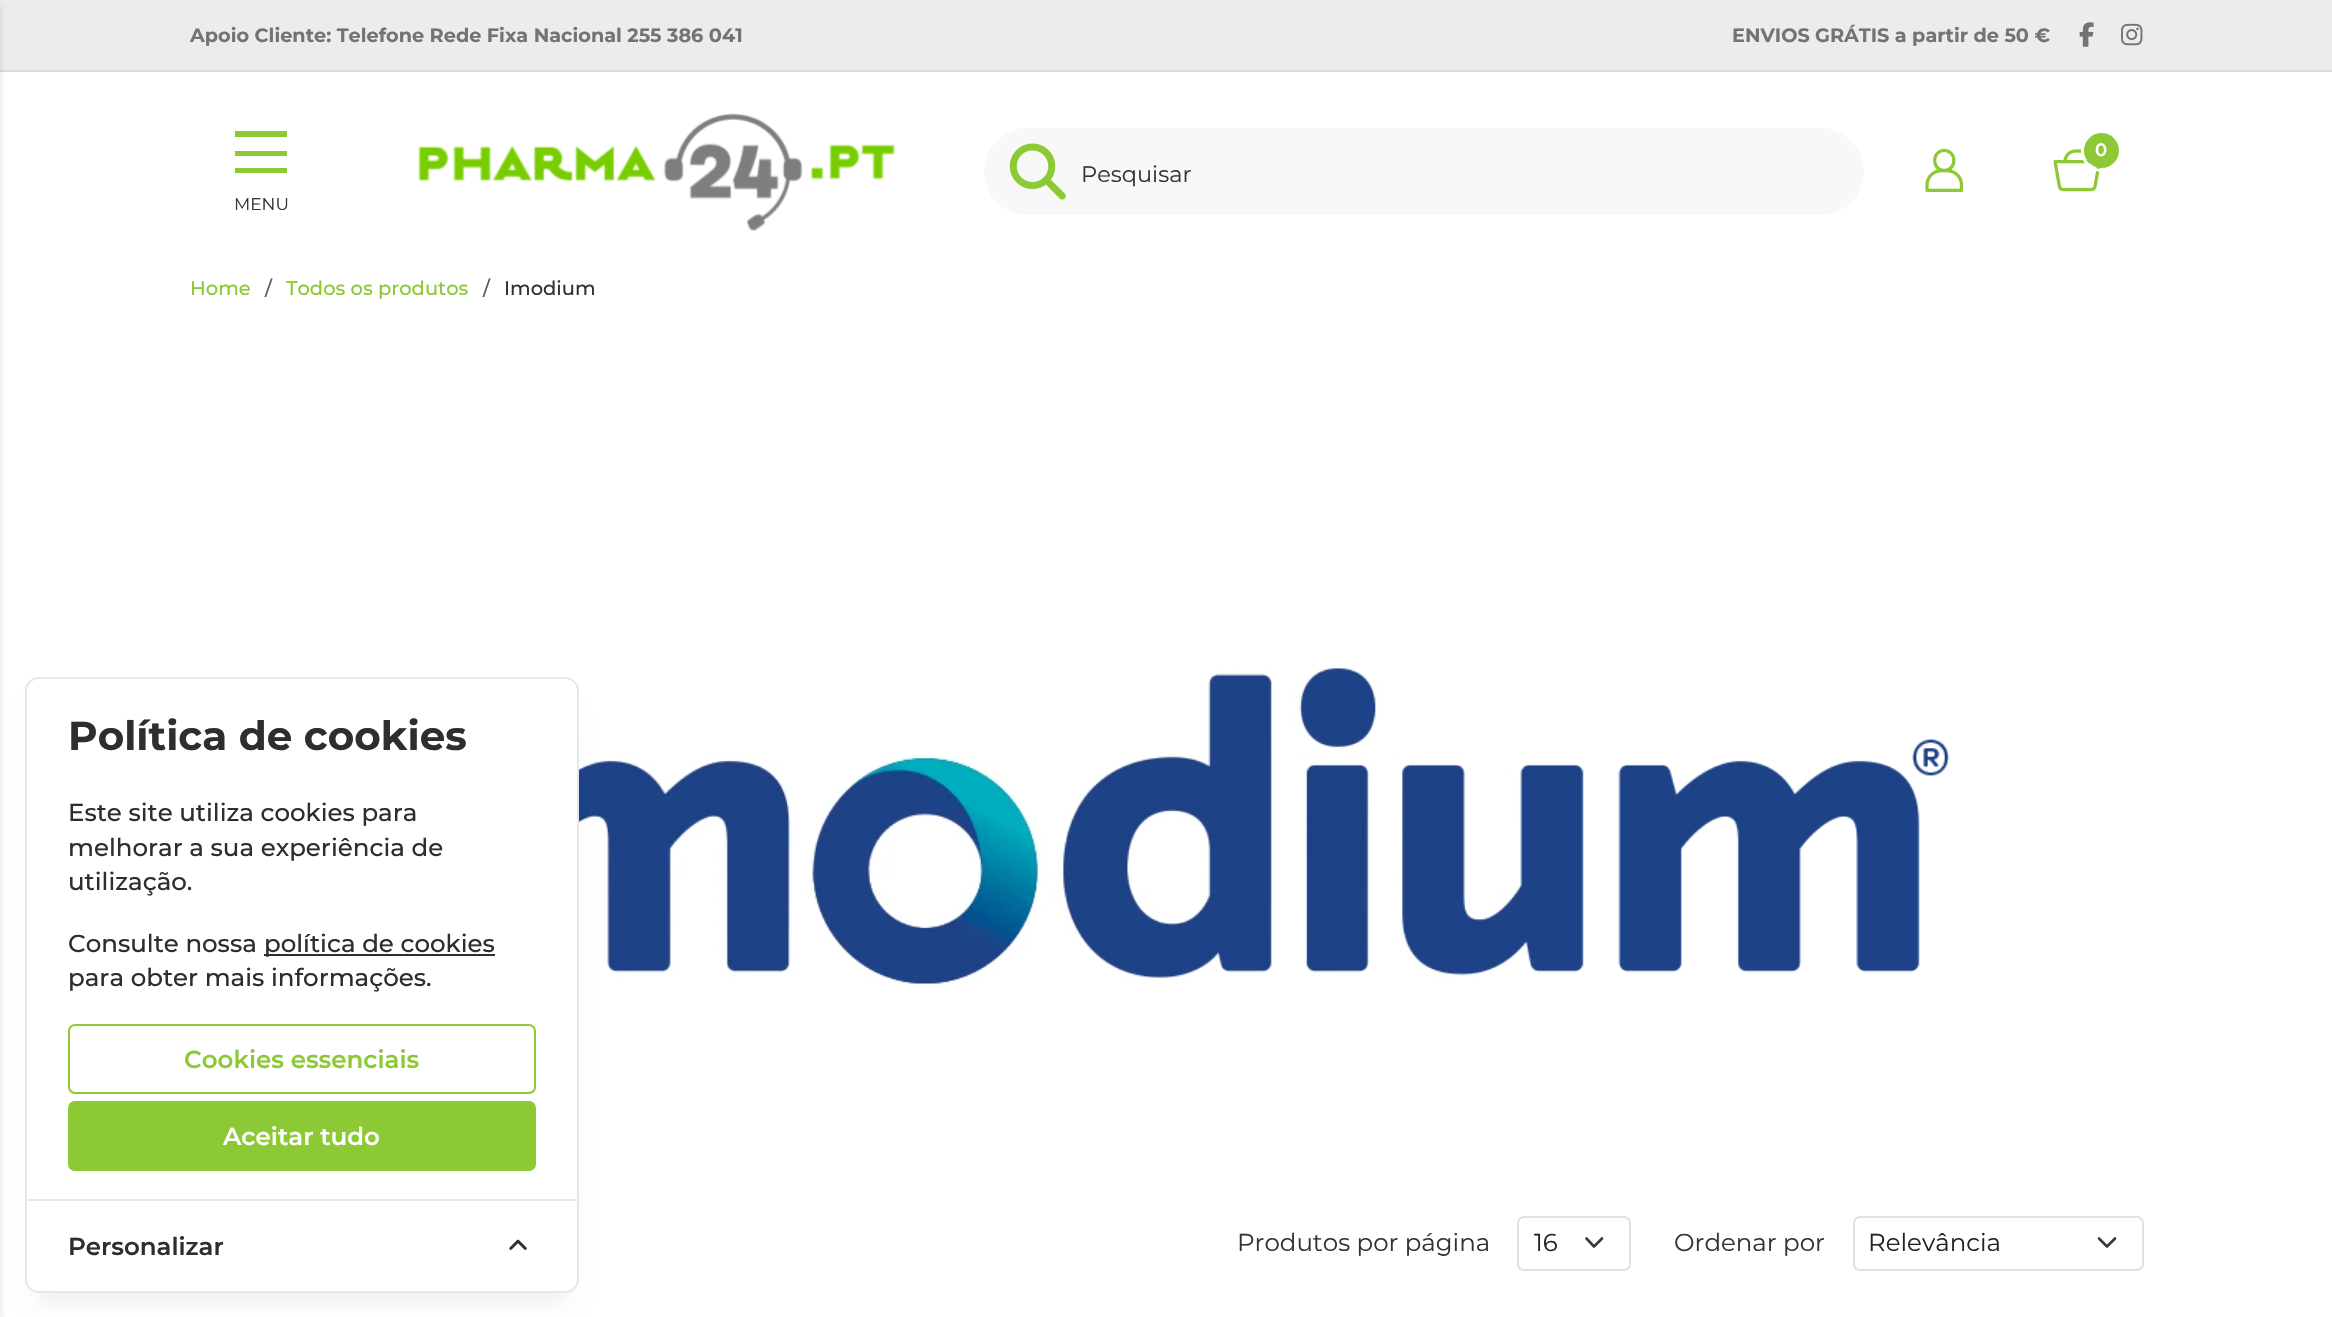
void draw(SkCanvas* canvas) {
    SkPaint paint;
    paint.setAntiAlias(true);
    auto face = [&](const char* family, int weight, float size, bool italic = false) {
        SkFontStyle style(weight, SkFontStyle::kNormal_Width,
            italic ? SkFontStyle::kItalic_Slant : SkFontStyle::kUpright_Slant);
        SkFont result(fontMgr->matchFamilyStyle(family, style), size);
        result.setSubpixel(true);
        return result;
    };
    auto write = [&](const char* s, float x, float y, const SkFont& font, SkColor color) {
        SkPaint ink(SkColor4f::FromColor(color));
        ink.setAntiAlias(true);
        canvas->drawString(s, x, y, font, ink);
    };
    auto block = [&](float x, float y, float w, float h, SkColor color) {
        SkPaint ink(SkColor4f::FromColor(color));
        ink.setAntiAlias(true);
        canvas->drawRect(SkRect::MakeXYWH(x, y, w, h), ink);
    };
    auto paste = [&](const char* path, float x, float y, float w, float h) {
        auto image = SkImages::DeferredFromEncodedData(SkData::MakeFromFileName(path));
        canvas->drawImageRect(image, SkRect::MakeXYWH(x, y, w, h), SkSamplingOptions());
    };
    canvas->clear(SK_ColorWHITE);
    block(0, 0, 2332, 70, SkColorSetRGB(236, 236, 236));
    block(0, 70, 2332, 2, SkColorSetRGB(219, 219, 219));
    paint.setColor(SkColorSetARGB(33, 0, 0, 0));
    paint.setMaskFilter(SkMaskFilter::MakeBlur(kNormal_SkBlurStyle, 3.5f));
    canvas->drawRect(SkRect::MakeXYWH(-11, 7, 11, 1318), paint);
    paint.setMaskFilter(nullptr);
    auto kFont1 = face("Montserrat", 700, 19.25f);
    write("Apoio Cliente: Telefone Rede Fixa Nacional 255 386 041", 190, 42, kFont1, SkColorSetRGB(115, 115, 115));
    write("ENVIOS GRÁTIS a partir de 50 €", 1732, 42, kFont1, SkColorSetRGB(115, 115, 115));
    paste("pic1.png", 2079, 22, 15, 25);
    paste("pic2.png", 2121, 23, 22, 23);
    paint.setColor(SkColorSetRGB(248, 248, 248));
    canvas->drawRoundRect(SkRect::MakeXYWH(985, 129, 878, 85), 42.5f, 42.5f, paint);
    paint.setStyle(SkPaint::kStroke_Style);
    paint.setStrokeWidth(2);
    canvas->drawRoundRect(SkRect::MakeXYWH(985, 129, 878, 85), 42.5f, 42.5f, paint);
    paste("pic3.png", 1009, 143, 57, 57);
    auto kFont2 = face("Montserrat", 400, 22.5f);
    write("Pesquisar", 1081, 182, kFont2, SkColorSetRGB(51, 51, 51));
    paste("pic4.png", 1925, 148, 39, 44);
    paste("pic5.png", 2053, 149, 48, 43);
    paint.setStrokeWidth(3);
    paint.setColor(SK_ColorWHITE);
    canvas->drawCircle(2102, 151, 19.5f, paint);
    paint.setStyle(SkPaint::kFill_Style);
    paint.setColor(SkColorSetRGB(140, 201, 53));
    canvas->drawCircle(2101.5f, 150.5f, 17.5f, paint);
    auto kFont3 = face("Montserrat", 600, 18);
    write("0", 2095, 156, kFont3, SK_ColorWHITE);
    block(235, 131, 52, 6, SkColorSetRGB(140, 201, 53));
    block(235, 151, 52, 5, SkColorSetRGB(140, 201, 53));
    block(235, 168, 52, 5, SkColorSetRGB(140, 201, 53));
    auto kFont4 = face("Montserrat", 400, 17);
    write("MENU", 234, 210, kFont4, SkColorSetRGB(51, 51, 51));
    paste("pic6.png", 418, 113, 477, 118);
    auto kFont5 = face("Montserrat", 500, 19.5f);
    write("Home", 190, 295, kFont5, SkColorSetRGB(140, 201, 53));
    write("/", 265, 295, kFont5, SkColorSetRGB(89, 92, 95));
    write("Todos os produtos", 286, 295, kFont5, SkColorSetRGB(140, 201, 53));
    write("/", 483, 295, kFont5, SkColorSetRGB(89, 92, 95));
    write("Imodium", 504, 295, kFont5, SkColorSetRGB(51, 51, 51));
    paste("pic7.png", 452, 668, 1498, 316);
    auto kFont6 = face("Montserrat", 400, 24.5f);
    write("Produtos por página", 1237, 1251, kFont6, SkColorSetRGB(51, 51, 51));
    paint.setStyle(SkPaint::kStroke_Style);
    paint.setStrokeWidth(2.6f);
    paint.setStrokeCap(SkPaint::kRound_Cap);
    paint.setStrokeJoin(SkPaint::kRound_Join);
    paint.setColor(SkColorSetRGB(52, 58, 64));
    canvas->drawPath(SkPathBuilder().moveTo(1586.5f, 1238.5f).lineTo(1594, 1246.5f).lineTo(1602, 1238.5f).detach(), paint);
    paint.setStrokeWidth(2);
    paint.setStrokeCap(SkPaint::kButt_Cap);
    paint.setStrokeJoin(SkPaint::kMiter_Join);
    paint.setColor(SkColorSetRGB(222, 226, 230));
    canvas->drawRoundRect(SkRect::MakeXYWH(1518, 1217, 112, 53), 6, 6, paint);
    write("16", 1534, 1251, kFont6, SkColorSetRGB(33, 37, 41));
    write("Ordenar por", 1674, 1251, kFont6, SkColorSetRGB(51, 51, 51));
    paint.setStrokeWidth(2.6f);
    paint.setStrokeCap(SkPaint::kRound_Cap);
    paint.setStrokeJoin(SkPaint::kRound_Join);
    paint.setColor(SkColorSetRGB(52, 58, 64));
    canvas->drawPath(SkPathBuilder().moveTo(2099, 1238.5f).lineTo(2107, 1246.5f).lineTo(2115, 1238.5f).detach(), paint);
    paint.setStrokeWidth(2);
    paint.setStrokeCap(SkPaint::kButt_Cap);
    paint.setStrokeJoin(SkPaint::kMiter_Join);
    paint.setColor(SkColorSetRGB(222, 226, 230));
    canvas->drawRoundRect(SkRect::MakeXYWH(1854, 1217, 289, 53), 6, 6, paint);
    write("Relevância", 1868, 1251, kFont6, SkColorSetRGB(33, 37, 41));
    paint.setStyle(SkPaint::kFill_Style);
    paint.setColor(SkColorSetARGB(20, 0, 0, 0));
    paint.setMaskFilter(SkMaskFilter::MakeBlur(kNormal_SkBlurStyle, 10.5f));
    canvas->drawRect(SkRect::MakeXYWH(39, 712, 526, 588), paint);
    paint.setMaskFilter(nullptr);
    paint.setColor(SK_ColorWHITE);
    canvas->drawRoundRect(SkRect::MakeXYWH(26, 678, 552, 614), 13, 13, paint);
    paint.setStyle(SkPaint::kStroke_Style);
    paint.setColor(SkColorSetRGB(231, 232, 233));
    canvas->drawRoundRect(SkRect::MakeXYWH(26, 678, 552, 614), 13, 13, paint);
    auto kFont7 = face("Montserrat", 700, 40.5f);
    write("Política de cookies", 68, 750, kFont7, SkColorSetRGB(44, 46, 48));
    auto kFont8 = face("Montserrat", 500, 24.5f);
    write("Este site utiliza cookies para", 68, 821, kFont8, SkColorSetRGB(44, 46, 48));
    write("melhorar a sua experiência de", 68, 856, kFont8, SkColorSetRGB(44, 46, 48));
    write("utilização.", 68, 890, kFont8, SkColorSetRGB(44, 46, 48));
    write("Consulte nossa", 68, 952, kFont8, SkColorSetRGB(44, 46, 48));
    block(264, 954, 231, 2, SkColorSetRGB(44, 46, 48));
    write("política de cookies", 264, 952, kFont8, SkColorSetRGB(44, 46, 48));
    write("para obter mais informações.", 68, 986, kFont8, SkColorSetRGB(44, 46, 48));
    paint.setColor(SkColorSetRGB(140, 201, 53));
    canvas->drawRoundRect(SkRect::MakeXYWH(69, 1025, 466, 68), 6, 6, paint);
    auto kFont9 = face("Montserrat", 600, 24.5f);
    write("Cookies essenciais", 184, 1068, kFont9, SkColorSetRGB(140, 201, 53));
    paint.setStyle(SkPaint::kFill_Style);
    canvas->drawRoundRect(SkRect::MakeXYWH(69, 1102, 466, 68), 6, 6, paint);
    paint.setStyle(SkPaint::kStroke_Style);
    canvas->drawRoundRect(SkRect::MakeXYWH(69, 1102, 466, 68), 6, 6, paint);
    write("Aceitar tudo", 223, 1145, kFont9, SK_ColorWHITE);
    block(26, 1199, 552, 2, SkColorSetRGB(231, 232, 233));
    write("Personalizar", 68, 1255, kFont9, SkColorSetRGB(44, 46, 48));
    paste("pic8.png", 509, 1239, 18, 11);
    block(0, 1314, 4, 3, SkColorSetRGB(245, 245, 245));
}
